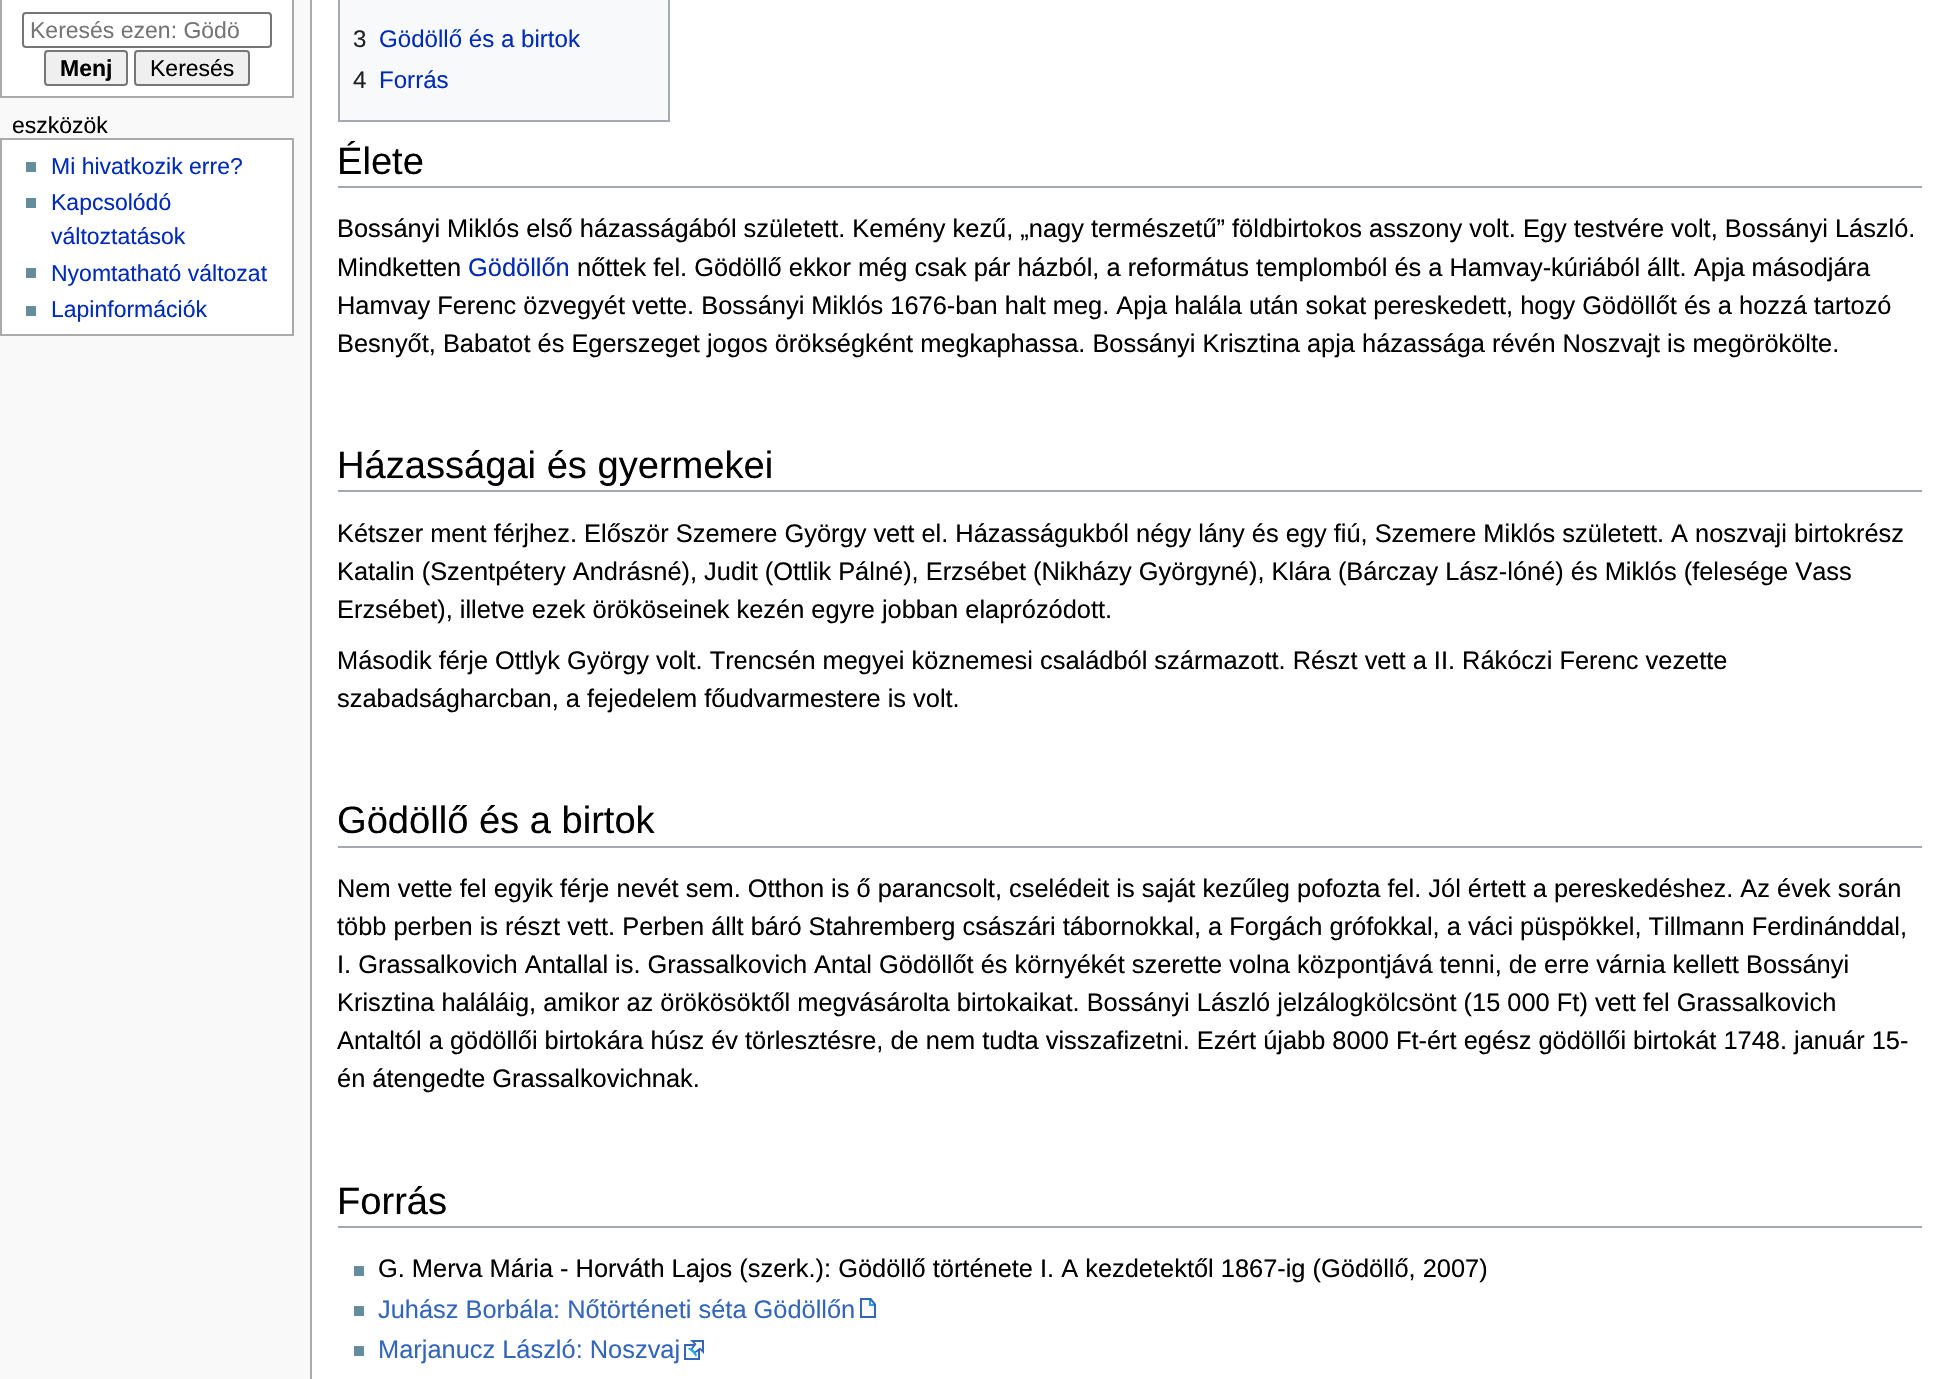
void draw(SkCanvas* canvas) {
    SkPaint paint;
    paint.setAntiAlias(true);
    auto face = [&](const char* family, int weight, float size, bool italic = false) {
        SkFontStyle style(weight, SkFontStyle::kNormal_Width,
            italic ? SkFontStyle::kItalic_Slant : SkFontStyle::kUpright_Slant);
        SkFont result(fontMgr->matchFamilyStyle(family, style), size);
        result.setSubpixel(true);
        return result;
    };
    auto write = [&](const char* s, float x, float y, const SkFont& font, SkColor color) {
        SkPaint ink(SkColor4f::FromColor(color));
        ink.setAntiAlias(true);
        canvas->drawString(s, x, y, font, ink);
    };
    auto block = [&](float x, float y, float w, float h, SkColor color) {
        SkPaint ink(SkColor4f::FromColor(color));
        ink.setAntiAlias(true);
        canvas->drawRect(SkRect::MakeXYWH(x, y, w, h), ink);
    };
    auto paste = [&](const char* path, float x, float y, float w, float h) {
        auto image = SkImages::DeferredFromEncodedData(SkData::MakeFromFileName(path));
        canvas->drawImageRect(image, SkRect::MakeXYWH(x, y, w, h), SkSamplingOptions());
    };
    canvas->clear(SkColorSetRGB(249, 249, 249));
    paint.setColor(SK_ColorWHITE);
    canvas->drawRect(SkRect::MakeXYWH(1, -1, 292, 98), paint);
    paint.setStyle(SkPaint::kStroke_Style);
    paint.setStrokeWidth(2);
    paint.setColor(SkColorSetRGB(170, 170, 170));
    canvas->drawRect(SkRect::MakeXYWH(1, -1, 292, 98), paint);
    paint.setColor(SkColorSetRGB(118, 118, 118));
    canvas->drawRoundRect(SkRect::MakeXYWH(23, 13, 248, 34), 3, 3, paint);
    auto kFont1 = face("Liberation Sans", 400, 23);
    write("Keresés ezen: Gödö", 30, 38, kFont1, SkColorSetRGB(117, 117, 117));
    paint.setStyle(SkPaint::kFill_Style);
    paint.setColor(SkColorSetRGB(239, 239, 239));
    canvas->drawRoundRect(SkRect::MakeXYWH(45, 51, 82, 34), 3, 3, paint);
    paint.setStyle(SkPaint::kStroke_Style);
    paint.setColor(SkColorSetRGB(118, 118, 118));
    canvas->drawRoundRect(SkRect::MakeXYWH(45, 51, 82, 34), 3, 3, paint);
    auto kFont2 = face("Liberation Sans", 700, 23);
    write("Menj", 60, 76, kFont2, SK_ColorBLACK);
    paint.setStyle(SkPaint::kFill_Style);
    paint.setColor(SkColorSetRGB(239, 239, 239));
    canvas->drawRoundRect(SkRect::MakeXYWH(135, 51, 114, 34), 3, 3, paint);
    paint.setStyle(SkPaint::kStroke_Style);
    paint.setColor(SkColorSetRGB(118, 118, 118));
    canvas->drawRoundRect(SkRect::MakeXYWH(135, 51, 114, 34), 3, 3, paint);
    write("Keresés", 150, 76, kFont1, SK_ColorBLACK);
    write("eszközök", 12, 133, kFont1, SK_ColorBLACK);
    paint.setStyle(SkPaint::kFill_Style);
    paint.setColor(SK_ColorWHITE);
    canvas->drawRect(SkRect::MakeXYWH(1, 139, 292, 196), paint);
    paint.setStyle(SkPaint::kStroke_Style);
    paint.setColor(SkColorSetRGB(170, 170, 170));
    canvas->drawRect(SkRect::MakeXYWH(1, 139, 292, 196), paint);
    block(26, 162, 10, 10, SkColorSetRGB(99, 140, 156));
    write("Mi hivatkozik erre?", 51, 174, kFont1, SkColorSetRGB(0, 43, 184));
    block(26, 198, 10, 10, SkColorSetRGB(99, 140, 156));
    write("Kapcsolódó", 51, 210, kFont1, SkColorSetRGB(0, 43, 184));
    write("változtatások", 51, 244, kFont1, SkColorSetRGB(0, 43, 184));
    block(26, 268, 10, 10, SkColorSetRGB(99, 140, 156));
    write("Nyomtatható változat", 51, 281, kFont1, SkColorSetRGB(0, 43, 184));
    block(26, 306, 10, 10, SkColorSetRGB(99, 140, 156));
    write("Lapinformációk", 51, 317, kFont1, SkColorSetRGB(0, 43, 184));
    block(312, 0, 1636, 1379, SK_ColorWHITE);
    block(310, 0, 2, 1379, SkColorSetRGB(170, 170, 170));
    paint.setStyle(SkPaint::kFill_Style);
    paint.setColor(SkColorSetRGB(248, 249, 250));
    canvas->drawRect(SkRect::MakeXYWH(339, -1, 330, 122), paint);
    paint.setStyle(SkPaint::kStroke_Style);
    paint.setColor(SkColorSetRGB(162, 169, 177));
    canvas->drawRect(SkRect::MakeXYWH(339, -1, 330, 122), paint);
    auto kFont3 = face("Liberation Sans", 400, 24.1f);
    write("3", 353, 47, kFont3, SkColorSetRGB(32, 33, 34));
    write("Gödöllő és a birtok", 379, 47, kFont3, SkColorSetRGB(0, 43, 184));
    write("4", 353, 88, kFont3, SkColorSetRGB(32, 33, 34));
    write("Forrás", 379, 88, kFont3, SkColorSetRGB(0, 43, 184));
    block(338, 186, 1584, 2, SkColorSetRGB(162, 169, 177));
    auto kFont4 = face("Liberation Sans", 400, 38.1f);
    write("Élete", 337, 174, kFont4, SK_ColorBLACK);
    auto kFont5 = face("Liberation Sans", 400, 25.4f);
    write("Bossányi Miklós első házasságából született. Kemény kezű, „nagy természetű” földbirtokos asszony volt. Egy testvére volt, Bossányi László.", 337, 237, kFont5, SK_ColorBLACK);
    write("Mindketten", 337, 276, kFont5, SK_ColorBLACK);
    write("Gödöllőn", 468, 276, kFont5, SkColorSetRGB(0, 43, 184));
    write("nőttek fel. Gödöllő ekkor még csak pár házból, a református templomból és a Hamvay-kúriából állt. Apja másodjára", 577, 276, kFont5, SK_ColorBLACK);
    write("Hamvay Ferenc özvegyét vette. Bossányi Miklós 1676-ban halt meg. Apja halála után sokat pereskedett, hogy Gödöllőt és a hozzá tartozó", 337, 314, kFont5, SK_ColorBLACK);
    write("Besnyőt, Babatot és Egerszeget jogos örökségként megkaphassa. Bossányi Krisztina apja házassága révén Noszvajt is megörökölte.", 337, 352, kFont5, SK_ColorBLACK);
    block(338, 490, 1584, 2, SkColorSetRGB(162, 169, 177));
    write("Házasságai és gyermekei", 337, 478, kFont4, SK_ColorBLACK);
    write("Kétszer ment férjhez. Először Szemere György vett el. Házasságukból négy lány és egy fiú, Szemere Miklós született. A noszvaji birtokrész", 337, 542, kFont5, SK_ColorBLACK);
    write("Katalin (Szentpétery Andrásné), Judit (Ottlik Pálné), Erzsébet (Nikházy Györgyné), Klára (Bárczay Lász-lóné) és Miklós (felesége Vass", 337, 580, kFont5, SK_ColorBLACK);
    write("Erzsébet), illetve ezek örököseinek kezén egyre jobban elaprózódott.", 337, 618, kFont5, SK_ColorBLACK);
    write("Második férje Ottlyk György volt. Trencsén megyei köznemesi családból származott. Részt vett a II. Rákóczi Ferenc vezette", 337, 669, kFont5, SK_ColorBLACK);
    write("szabadságharcban, a fejedelem főudvarmestere is volt.", 337, 707, kFont5, SK_ColorBLACK);
    block(338, 846, 1584, 2, SkColorSetRGB(162, 169, 177));
    write("Gödöllő és a birtok", 337, 833, kFont4, SK_ColorBLACK);
    write("Nem vette fel egyik férje nevét sem. Otthon is ő parancsolt, cselédeit is saját kezűleg pofozta fel. Jól értett a pereskedéshez. Az évek során", 337, 897, kFont5, SK_ColorBLACK);
    write("több perben is részt vett. Perben állt báró Stahremberg császári tábornokkal, a Forgách grófokkal, a váci püspökkel, Tillmann Ferdinánddal,", 337, 935, kFont5, SK_ColorBLACK);
    write("I. Grassalkovich Antallal is. Grassalkovich Antal Gödöllőt és környékét szerette volna központjává tenni, de erre várnia kellett Bossányi", 337, 973, kFont5, SK_ColorBLACK);
    write("Krisztina haláláig, amikor az örökösöktől megvásárolta birtokaikat. Bossányi László jelzálogkölcsönt (15 000 Ft) vett fel Grassalkovich", 337, 1011, kFont5, SK_ColorBLACK);
    write("Antaltól a gödöllői birtokára húsz év törlesztésre, de nem tudta visszafizetni. Ezért újabb 8000 Ft-ért egész gödöllői birtokát 1748. január 15-", 337, 1049, kFont5, SK_ColorBLACK);
    write("én átengedte Grassalkovichnak.", 337, 1087, kFont5, SK_ColorBLACK);
    block(338, 1226, 1584, 2, SkColorSetRGB(162, 169, 177));
    write("Forrás", 337, 1214, kFont4, SK_ColorBLACK);
    block(354, 1266, 10, 10, SkColorSetRGB(99, 140, 156));
    write("G. Merva Mária - Horváth Lajos (szerk.): Gödöllő története I. A kezdetektől 1867-ig (Gödöllő, 2007)", 378, 1277, kFont5, SK_ColorBLACK);
    block(354, 1306, 10, 10, SkColorSetRGB(99, 140, 156));
    write("Juhász Borbála: Nőtörténeti séta Gödöllőn", 378, 1318, kFont5, SkColorSetRGB(51, 102, 187));
    paste("pic1.png", 860, 1298, 16, 20);
    block(354, 1346, 10, 10, SkColorSetRGB(99, 140, 156));
    write("Marjanucz László: Noszvaj", 378, 1358, kFont5, SkColorSetRGB(51, 102, 187));
    paste("pic2.png", 684, 1340, 20, 20);
}
